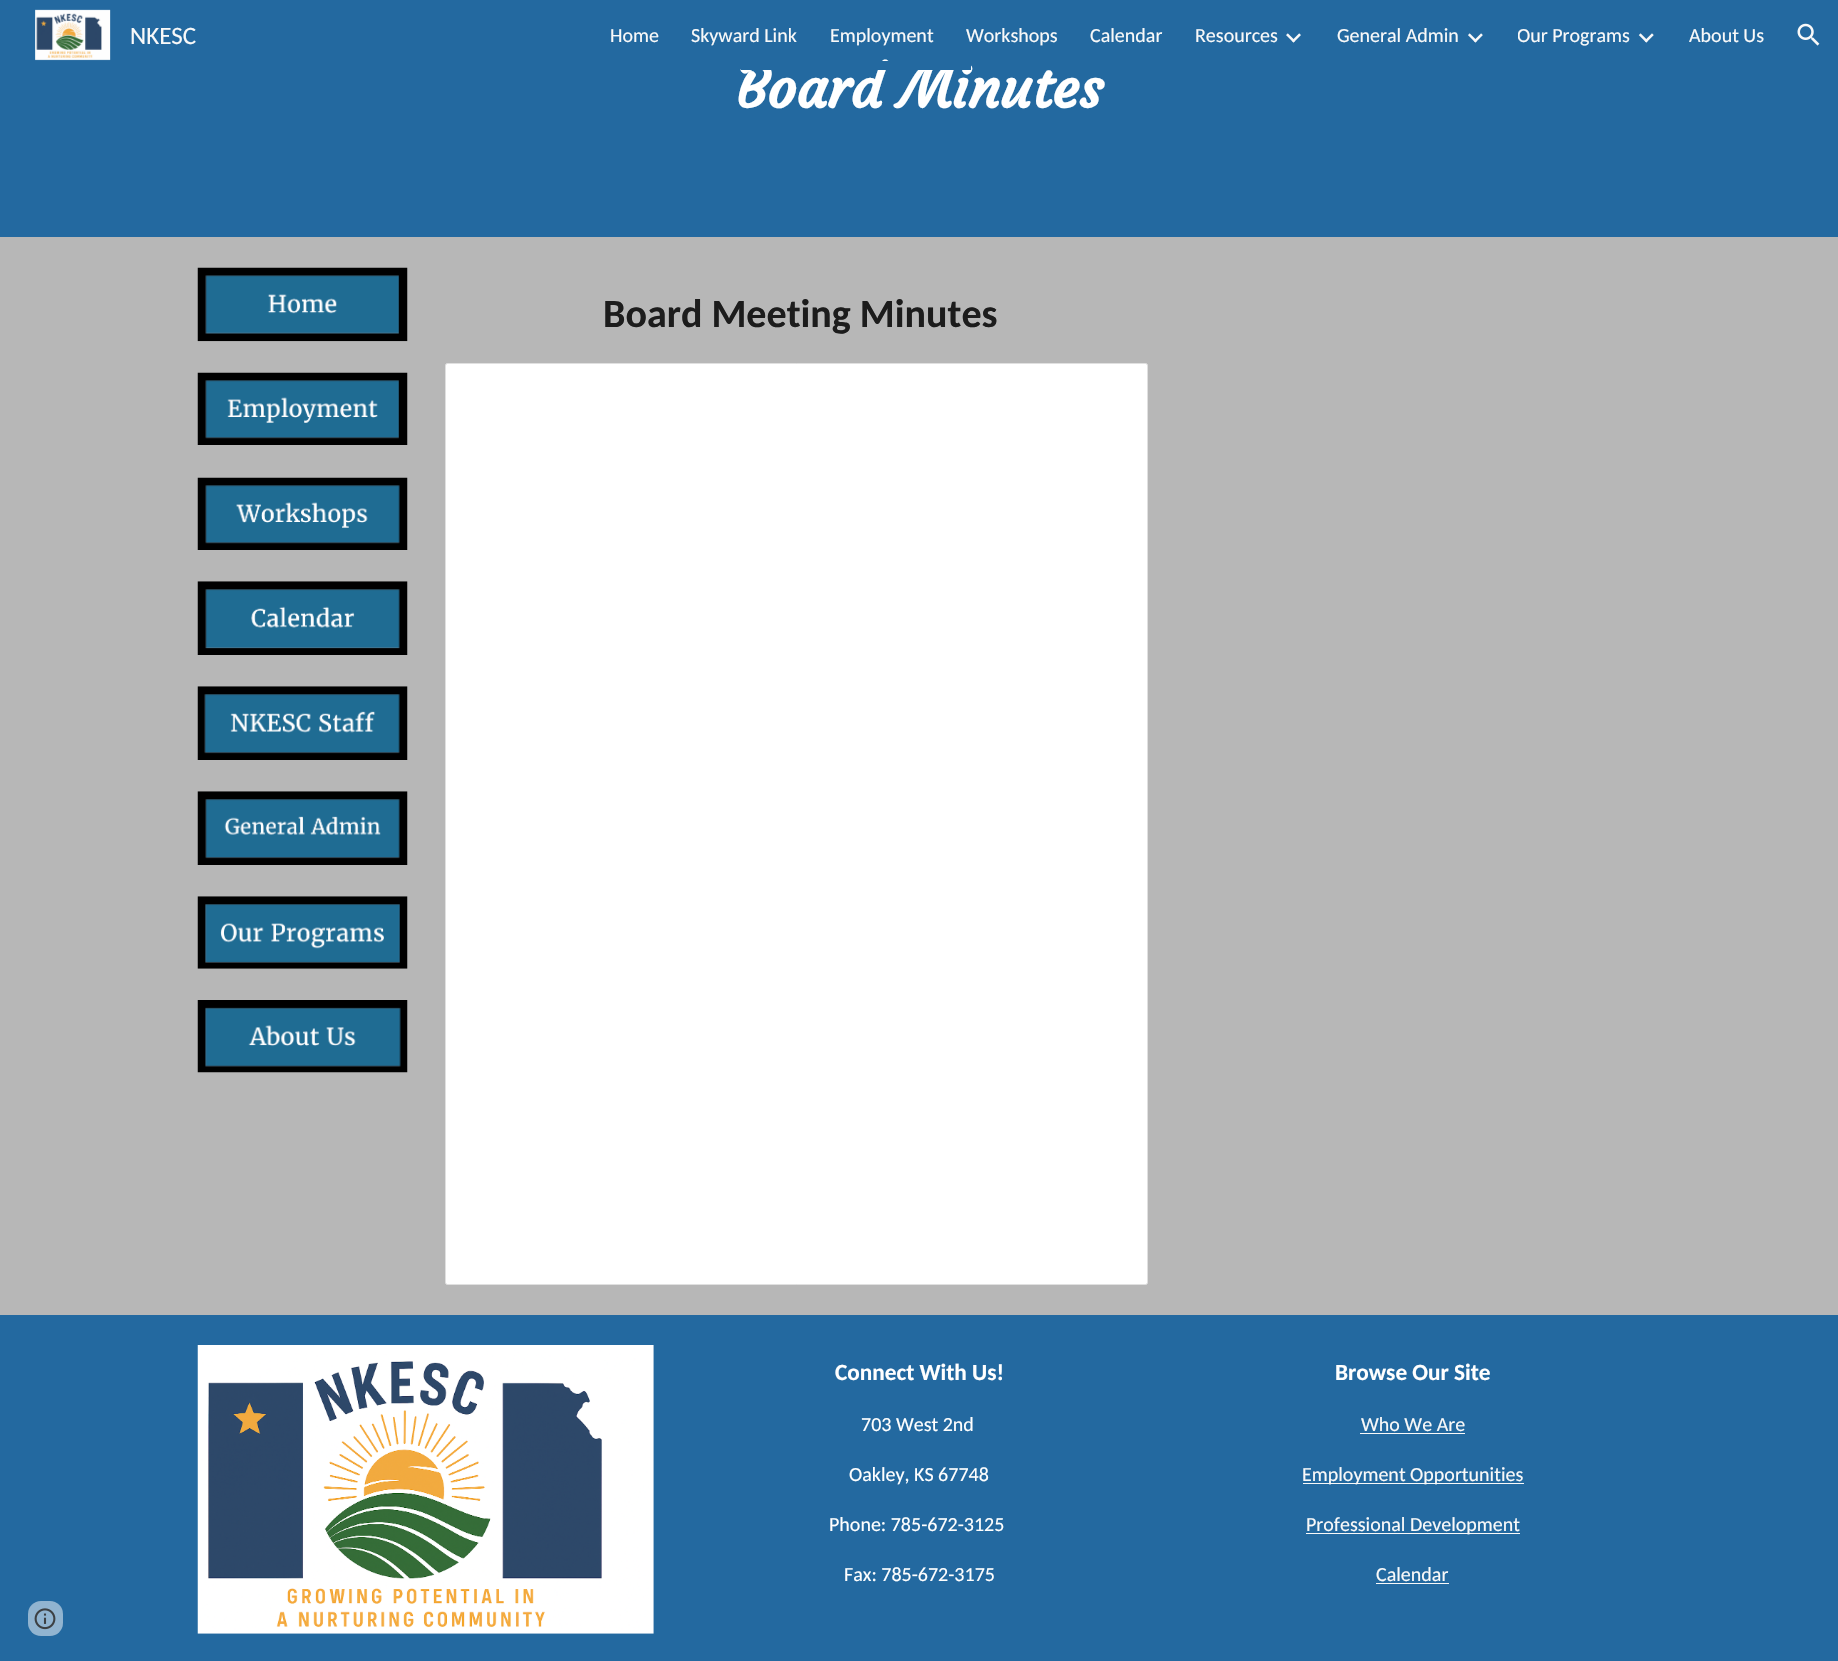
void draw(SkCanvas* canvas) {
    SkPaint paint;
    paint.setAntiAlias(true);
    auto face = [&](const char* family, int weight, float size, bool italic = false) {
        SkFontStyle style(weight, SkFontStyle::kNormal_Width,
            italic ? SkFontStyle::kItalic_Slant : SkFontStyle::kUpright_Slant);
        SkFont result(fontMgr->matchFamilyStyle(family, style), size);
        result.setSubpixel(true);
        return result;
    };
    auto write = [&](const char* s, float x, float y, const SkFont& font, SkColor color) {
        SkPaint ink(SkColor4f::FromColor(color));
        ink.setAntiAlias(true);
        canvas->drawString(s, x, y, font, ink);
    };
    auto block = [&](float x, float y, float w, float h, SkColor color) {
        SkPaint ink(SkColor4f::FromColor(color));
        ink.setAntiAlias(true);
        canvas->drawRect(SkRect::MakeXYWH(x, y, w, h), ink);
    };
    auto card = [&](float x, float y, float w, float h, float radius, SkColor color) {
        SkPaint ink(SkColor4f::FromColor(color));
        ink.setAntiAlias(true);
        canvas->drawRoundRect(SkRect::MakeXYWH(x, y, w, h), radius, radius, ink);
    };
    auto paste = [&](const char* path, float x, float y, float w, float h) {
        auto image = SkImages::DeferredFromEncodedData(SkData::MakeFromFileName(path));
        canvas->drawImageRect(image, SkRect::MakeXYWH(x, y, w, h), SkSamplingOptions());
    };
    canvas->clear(SkColorSetRGB(35, 105, 160));
    paste("pic1.png", 35, 9, 76, 52);
    auto kFont1 = face("Carlito", 400, 25);
    write("NKESC", 130, 44, kFont1, SkColorSetRGB(249, 249, 249));
    auto kFont2 = face("Carlito", 400, 20);
    write("Home", 610, 42, kFont2, SkColorSetRGB(249, 249, 249));
    write("Skyward Link", 691, 42, kFont2, SkColorSetRGB(249, 249, 249));
    write("Employment", 830, 42, kFont2, SkColorSetRGB(249, 249, 249));
    write("Workshops", 966, 42, kFont2, SkColorSetRGB(249, 249, 249));
    write("Calendar", 1090, 42, kFont2, SkColorSetRGB(249, 249, 249));
    write("Resources", 1195, 42, kFont2, SkColorSetRGB(249, 249, 249));
    paste("pic2.png", 1286, 33, 15, 10);
    write("General Admin", 1337, 42, kFont2, SkColorSetRGB(249, 249, 249));
    paste("pic3.png", 1468, 33, 15, 10);
    canvas->save();
    canvas->clipRect(SkRect::MakeXYWH(1518, 24, 112, 24));
    write("Our Programs", 1517, 42, kFont2, SkColorSetRGB(249, 249, 249));
    canvas->restore();
    paste("pic4.png", 1638, 33, 16, 10);
    write("About Us", 1689, 42, kFont2, SkColorSetRGB(249, 249, 249));
    paste("pic5.png", 1797, 23, 23, 23);
    auto kFont3 = face("Courgette", 700, 56.75f);
    write("Board Minutes", 736, 108, kFont3, SK_ColorWHITE);
    block(741, 61, 230, 9, SkColorSetRGB(35, 105, 160));
    block(0, 237, 1838, 1078, SkColorSetRGB(183, 183, 183));
    paste("pic6.png", 197, 267, 211, 75);
    paste("pic7.png", 197, 372, 211, 73);
    paste("pic8.png", 197, 477, 211, 73);
    paste("pic9.png", 197, 581, 211, 74);
    paste("pic10.png", 197, 686, 211, 74);
    paste("pic11.png", 197, 791, 211, 74);
    paste("pic12.png", 197, 896, 211, 73);
    paste("pic13.png", 197, 1000, 211, 73);
    auto kFont4 = face("Carlito", 700, 40);
    write("Board Meeting Minutes", 603, 327, kFont4, SkColorSetRGB(28, 28, 28));
    paint.setColor(SK_ColorWHITE);
    canvas->drawRoundRect(SkRect::MakeXYWH(445.5f, 363.5f, 702, 921), 2, 2, paint);
    paint.setStyle(SkPaint::kStroke_Style);
    paint.setStrokeWidth(1);
    paint.setColor(SkColorSetRGB(224, 224, 224));
    canvas->drawRoundRect(SkRect::MakeXYWH(445.5f, 363.5f, 702, 921), 2, 2, paint);
    paste("pic14.png", 197, 1345, 457, 289);
    auto kFont5 = face("Carlito", 700, 23.25f);
    write("Connect With Us!", 835, 1380, kFont5, SK_ColorWHITE);
    write("703 West 2nd", 861, 1431, kFont2, SK_ColorWHITE);
    write("Oakley, KS 67748", 849, 1481, kFont2, SK_ColorWHITE);
    write("Phone: 785-672-3125", 829, 1531, kFont2, SK_ColorWHITE);
    write("Fax: 785-672-3175", 844, 1581, kFont2, SK_ColorWHITE);
    write("Browse Our Site", 1335, 1380, kFont5, SK_ColorWHITE);
    write("Who We Are", 1361, 1431, kFont2, SkColorSetRGB(249, 249, 249));
    block(1360, 1433, 105, 1, SkColorSetRGB(249, 249, 249));
    block(1303, 1483, 221, 1, SkColorSetRGB(249, 249, 249));
    write("Employment Opportunities", 1302, 1481, kFont2, SkColorSetRGB(249, 249, 249));
    block(1306, 1533, 214, 1, SkColorSetRGB(249, 249, 249));
    write("Professional Development", 1306, 1531, kFont2, SkColorSetRGB(249, 249, 249));
    write("Calendar", 1376, 1581, kFont2, SkColorSetRGB(249, 249, 249));
    block(1376, 1583, 73, 1, SkColorSetRGB(249, 249, 249));
    card(28, 1601, 35, 35, 13, SkColorSetRGB(145, 180, 208));
    paste("pic15.png", 34, 1608, 22, 22);
}
